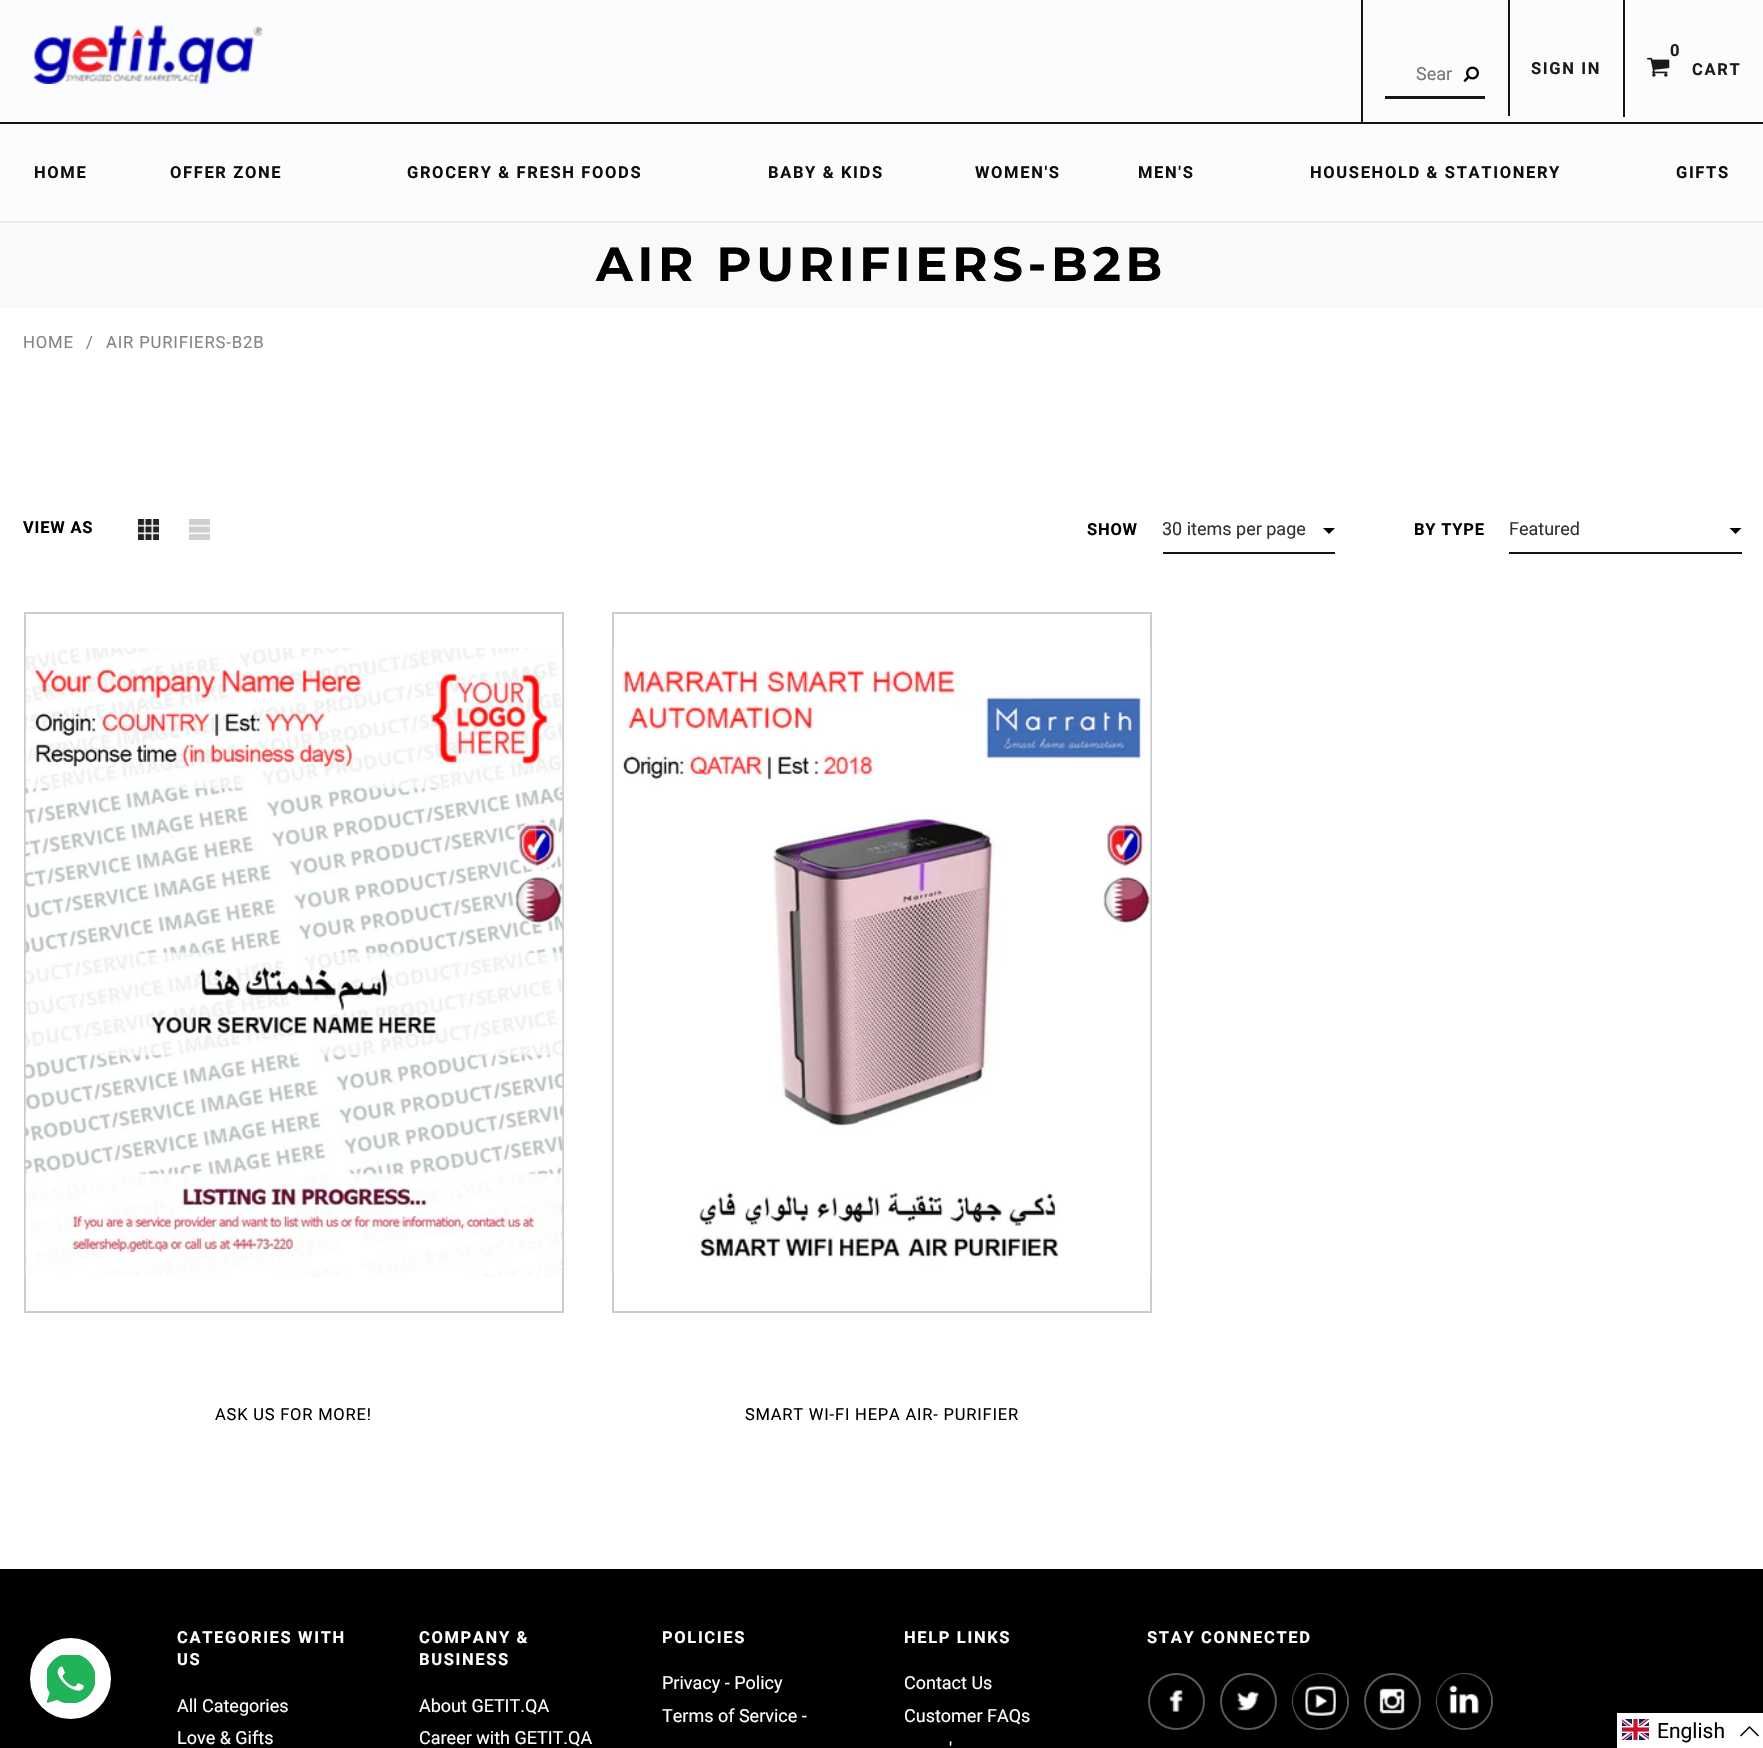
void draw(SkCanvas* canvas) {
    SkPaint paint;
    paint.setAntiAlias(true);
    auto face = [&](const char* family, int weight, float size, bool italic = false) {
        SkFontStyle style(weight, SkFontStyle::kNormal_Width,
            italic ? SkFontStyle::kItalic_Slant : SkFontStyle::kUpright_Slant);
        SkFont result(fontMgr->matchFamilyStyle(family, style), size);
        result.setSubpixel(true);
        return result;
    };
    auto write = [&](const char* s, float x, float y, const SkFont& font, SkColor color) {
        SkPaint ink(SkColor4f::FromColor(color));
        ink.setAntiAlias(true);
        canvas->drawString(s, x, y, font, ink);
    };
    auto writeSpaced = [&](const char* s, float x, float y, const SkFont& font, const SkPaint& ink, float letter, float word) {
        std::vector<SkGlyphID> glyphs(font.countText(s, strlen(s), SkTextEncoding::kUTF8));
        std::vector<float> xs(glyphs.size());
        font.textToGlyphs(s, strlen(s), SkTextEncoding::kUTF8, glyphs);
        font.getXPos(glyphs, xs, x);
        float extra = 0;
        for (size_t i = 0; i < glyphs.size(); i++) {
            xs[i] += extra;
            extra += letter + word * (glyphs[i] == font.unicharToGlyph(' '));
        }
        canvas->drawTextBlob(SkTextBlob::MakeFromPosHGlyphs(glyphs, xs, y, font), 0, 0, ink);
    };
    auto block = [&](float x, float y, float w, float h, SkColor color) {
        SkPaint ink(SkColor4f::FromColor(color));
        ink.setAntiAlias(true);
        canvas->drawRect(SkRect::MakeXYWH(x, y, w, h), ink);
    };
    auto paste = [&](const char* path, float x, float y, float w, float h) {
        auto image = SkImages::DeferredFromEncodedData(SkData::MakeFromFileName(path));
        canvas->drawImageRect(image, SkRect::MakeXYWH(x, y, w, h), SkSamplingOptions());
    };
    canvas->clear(SK_ColorWHITE);
    block(0, 0, 1763, 221, SkColorSetRGB(251, 252, 254));
    paste("pic1.png", 33, 25, 230, 59);
    block(1361, 0, 2, 122, SkColorSetRGB(21, 21, 21));
    block(1385, 96, 100, 3, SkColorSetRGB(21, 21, 21));
    auto kFont1 = face("Roboto", 400, 18);
    write("Sear", 1416, 80, kFont1, SkColorSetRGB(117, 117, 117));
    paste("pic2.png", 1463, 66, 16, 16);
    block(1508, 0, 2, 116, SkColorSetRGB(21, 21, 21));
    auto kFont2 = face("Roboto", 700, 16.5f);
    paint.setColor(SkColorSetRGB(27, 27, 27));
    writeSpaced("SIGN IN", 1531, 74, kFont2, paint, 1.65f, 0);
    block(1623, 0, 2, 117, SkColorSetRGB(21, 21, 21));
    writeSpaced("0", 1670, 56, kFont2, paint, 1.65f, 0);
    paste("pic3.png", 1647, 57, 23, 20);
    writeSpaced("CART", 1692, 75, kFont2, paint, 1.65f, 0);
    block(0, 122, 1763, 2, SkColorSetRGB(21, 21, 21));
    block(0, 221, 1763, 2, SkColorSetRGB(234, 234, 234));
    paint.setColor(SkColorSetRGB(15, 14, 14));
    writeSpaced("HOME", 34, 178, kFont2, paint, 1.65f, 0);
    writeSpaced("OFFER ZONE", 170, 178, kFont2, paint, 1.65f, 0);
    writeSpaced("GROCERY & FRESH FOODS", 407, 178, kFont2, paint, 1.65f, 0);
    writeSpaced("BABY & KIDS", 768, 178, kFont2, paint, 1.65f, 0);
    writeSpaced("WOMEN'S", 975, 178, kFont2, paint, 1.65f, 0);
    writeSpaced("MEN'S", 1138, 178, kFont2, paint, 1.65f, 0);
    writeSpaced("HOUSEHOLD & STATIONERY", 1310, 178, kFont2, paint, 1.65f, 0);
    writeSpaced("GIFTS", 1676, 178, kFont2, paint, 1.65f, 0);
    block(0, 223, 1763, 85, SkColorSetRGB(248, 249, 249));
    auto kFont3 = face("Montserrat", 700, 48);
    paint.setColor(SK_ColorBLACK);
    writeSpaced("AIR PURIFIERS-B2B", 596, 281, kFont3, paint, 4.75f, 0);
    auto kFont4 = face("Roboto", 400, 16.75f);
    paint.setColor(SkColorSetRGB(132, 132, 132));
    writeSpaced("HOME", 23, 348, kFont4, paint, 0.8f, 0);
    writeSpaced("/", 86, 348, kFont4, paint, 0.8f, 0);
    writeSpaced("AIR PURIFIERS-B2B", 106, 348, kFont4, paint, 0.8f, 0);
    paint.setColor(SK_ColorBLACK);
    writeSpaced("VIEW AS", 23, 533, kFont2, paint, 0.8f, 0);
    paste("pic4.png", 138, 519, 21, 21);
    paste("pic5.png", 189, 519, 21, 21);
    writeSpaced("SHOW", 1087, 535, kFont2, paint, 0.8f, 0);
    block(1163, 552, 172, 2, SkColorSetRGB(19, 19, 19));
    write("30 items per page", 1162, 535, kFont1, SkColorSetRGB(50, 50, 50));
    canvas->drawPath(SkPathBuilder().moveTo(1323, 528).lineTo(1335, 528).lineTo(1329, 534).close().detach(), paint);
    writeSpaced("BY TYPE", 1414, 535, kFont2, paint, 0.8f, 0);
    block(1509, 552, 233, 2, SkColorSetRGB(19, 19, 19));
    write("Featured", 1509, 535, kFont1, SkColorSetRGB(50, 50, 50));
    canvas->drawPath(SkPathBuilder().moveTo(1729.5f, 528).lineTo(1741.5f, 528).lineTo(1735.5f, 534).close().detach(), paint);
    paint.setStyle(SkPaint::kStroke_Style);
    paint.setStrokeWidth(2);
    paint.setColor(SkColorSetRGB(204, 204, 204));
    canvas->drawRect(SkRect::MakeXYWH(25, 613, 538, 699), paint);
    paste("pic6.png", 25, 648, 538, 629);
    auto kFont5 = face("Roboto", 400, 16.5f);
    paint.setStyle(SkPaint::kFill_Style);
    paint.setColor(SK_ColorBLACK);
    writeSpaced("ASK US FOR MORE!", 215, 1420, kFont5, paint, 0.8f, 0);
    paint.setStyle(SkPaint::kStroke_Style);
    paint.setColor(SkColorSetRGB(204, 204, 204));
    canvas->drawRect(SkRect::MakeXYWH(613, 613, 538, 699), paint);
    paste("pic7.png", 613, 648, 538, 629);
    paint.setStyle(SkPaint::kFill_Style);
    paint.setColor(SK_ColorBLACK);
    writeSpaced("SMART WI-FI HEPA AIR- PURIFIER", 745, 1420, kFont5, paint, 0.8f, 0);
    block(0, 1569, 1763, 179, SK_ColorBLACK);
    paint.setColor(SK_ColorWHITE);
    writeSpaced("CATEGORIES WITH", 177, 1643, kFont2, paint, 1.65f, 0);
    writeSpaced("US", 177, 1665, kFont2, paint, 1.65f, 0);
    write("All Categories", 177, 1712, kFont1, SK_ColorWHITE);
    write("Love & Gifts", 177, 1744, kFont1, SK_ColorWHITE);
    writeSpaced("COMPANY &", 419, 1643, kFont2, paint, 1.65f, 0);
    writeSpaced("BUSINESS", 419, 1665, kFont2, paint, 1.65f, 0);
    write("About GETIT.QA", 419, 1712, kFont1, SK_ColorWHITE);
    write("Career with GETIT.QA", 419, 1744, kFont1, SK_ColorWHITE);
    writeSpaced("POLICIES", 662, 1643, kFont2, paint, 1.65f, 0);
    write("Privacy - Policy", 662, 1689, kFont1, SK_ColorWHITE);
    write("Terms of Service -", 662, 1722, kFont1, SK_ColorWHITE);
    writeSpaced("HELP LINKS", 904, 1643, kFont2, paint, 1.65f, 0);
    write("Contact Us", 904, 1689, kFont1, SK_ColorWHITE);
    write("Customer FAQs", 904, 1722, kFont1, SK_ColorWHITE);
    write("'", 949, 1755, kFont1, SK_ColorWHITE);
    writeSpaced("STAY CONNECTED", 1147, 1643, kFont2, paint, 1.65f, 0);
    paint.setStyle(SkPaint::kStroke_Style);
    paint.setColor(SkColorSetRGB(88, 89, 91));
    canvas->drawCircle(1176.5f, 1701.5f, 27.5f, paint);
    paste("pic8.png", 1169, 1690, 14, 22);
    canvas->drawCircle(1248.5f, 1701.5f, 27.5f, paint);
    paste("pic9.png", 1237, 1691, 22, 20);
    canvas->drawCircle(1320.5f, 1701.5f, 27.5f, paint);
    paste("pic10.png", 1293, 1674, 54, 54);
    canvas->drawCircle(1392.5f, 1701.5f, 27.5f, paint);
    paste("pic11.png", 1379, 1688, 26, 26);
    canvas->drawCircle(1464.5f, 1701.5f, 27.5f, paint);
    paste("pic12.png", 1437, 1674, 54, 54);
    block(1617, 1713, 146, 35, SK_ColorWHITE);
    paste("pic13.png", 1622, 1719, 27, 21);
    auto kFont6 = face("Roboto", 400, 21);
    write("English", 1657, 1738, kFont6, SK_ColorBLACK);
    paint.setStrokeWidth(1.5f);
    paint.setColor(SK_ColorBLACK);
    canvas->drawPath(SkPathBuilder().moveTo(1758.5f, 1736).lineTo(1749.5f, 1727).lineTo(1740.5f, 1736).detach(), paint);
    paint.setStyle(SkPaint::kFill_Style);
    paint.setColor(SK_ColorWHITE);
    canvas->drawCircle(70.5f, 1678.5f, 39.5f, paint);
    paint.setStyle(SkPaint::kStroke_Style);
    paint.setStrokeWidth(2);
    canvas->drawCircle(70.5f, 1678.5f, 39.5f, paint);
    paste("pic14.png", 47, 1655, 48, 48);
}
